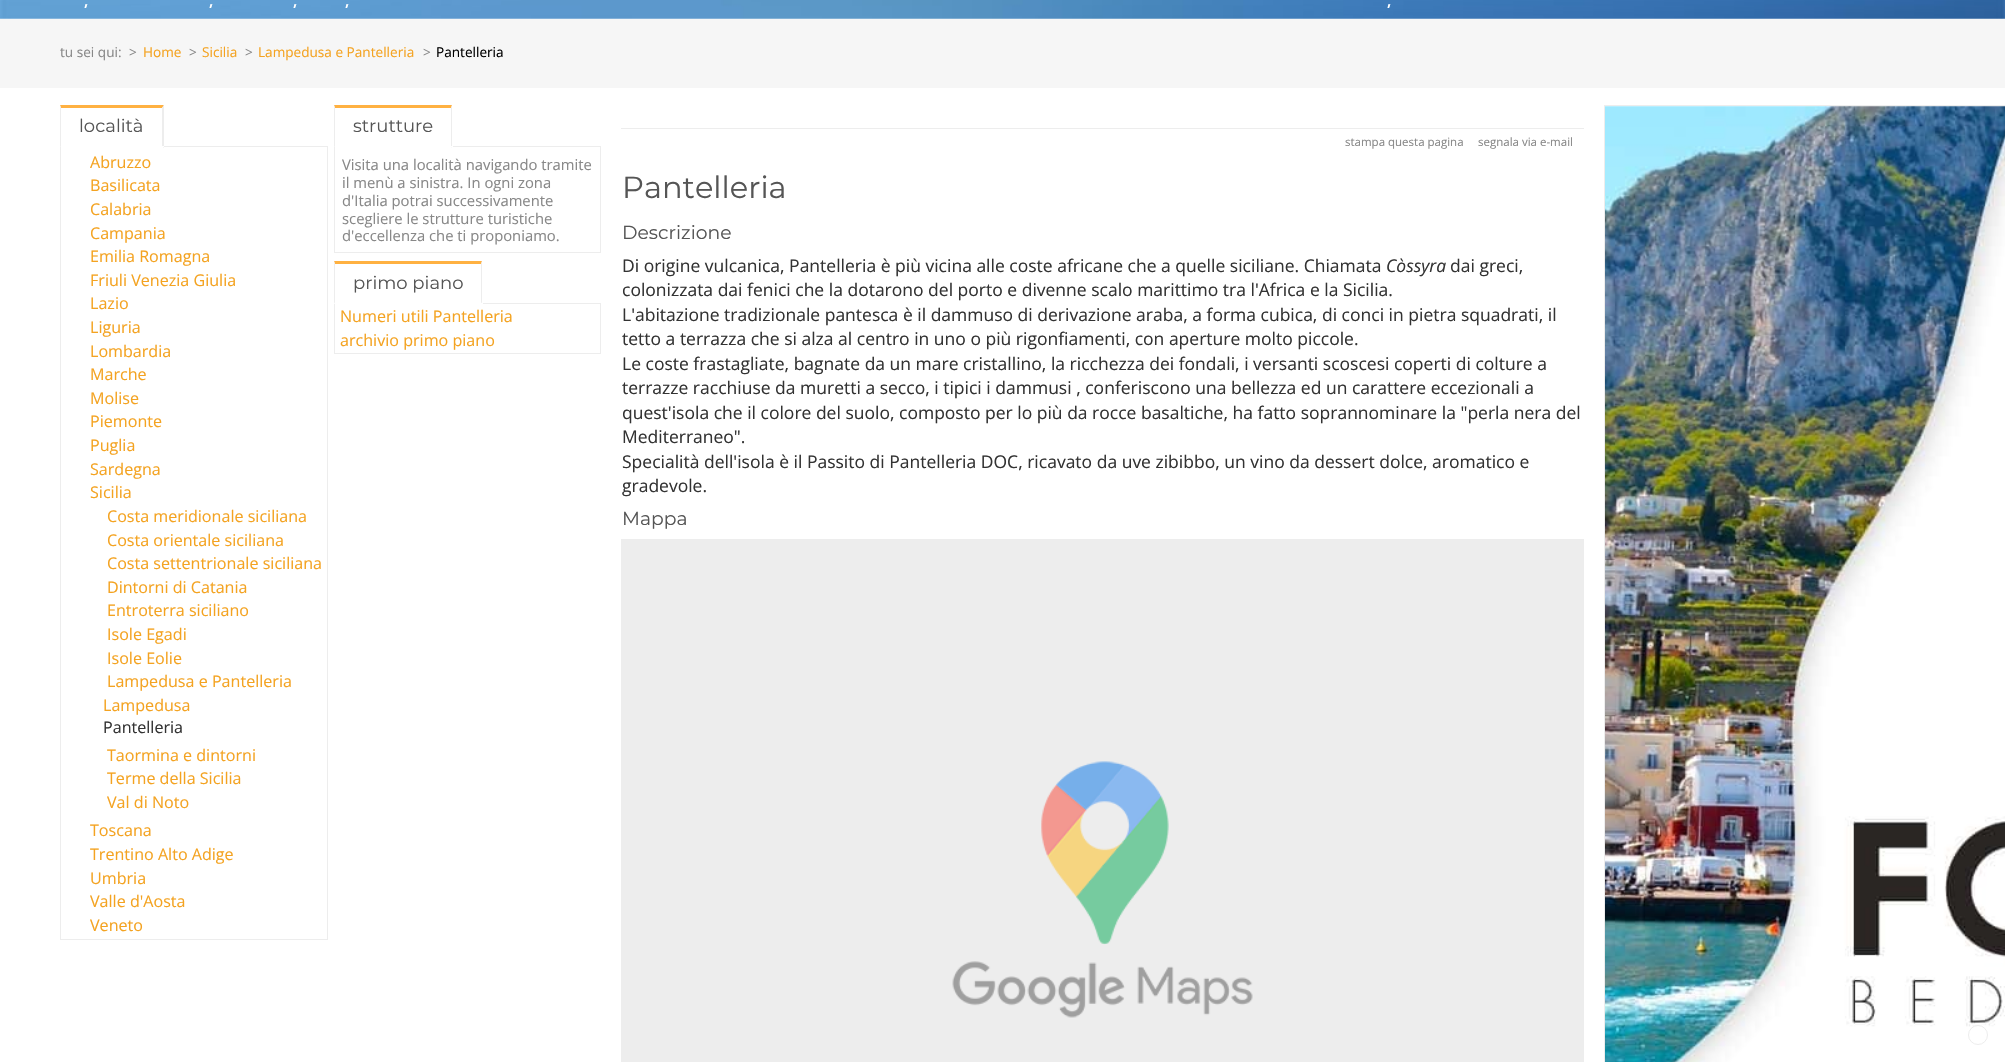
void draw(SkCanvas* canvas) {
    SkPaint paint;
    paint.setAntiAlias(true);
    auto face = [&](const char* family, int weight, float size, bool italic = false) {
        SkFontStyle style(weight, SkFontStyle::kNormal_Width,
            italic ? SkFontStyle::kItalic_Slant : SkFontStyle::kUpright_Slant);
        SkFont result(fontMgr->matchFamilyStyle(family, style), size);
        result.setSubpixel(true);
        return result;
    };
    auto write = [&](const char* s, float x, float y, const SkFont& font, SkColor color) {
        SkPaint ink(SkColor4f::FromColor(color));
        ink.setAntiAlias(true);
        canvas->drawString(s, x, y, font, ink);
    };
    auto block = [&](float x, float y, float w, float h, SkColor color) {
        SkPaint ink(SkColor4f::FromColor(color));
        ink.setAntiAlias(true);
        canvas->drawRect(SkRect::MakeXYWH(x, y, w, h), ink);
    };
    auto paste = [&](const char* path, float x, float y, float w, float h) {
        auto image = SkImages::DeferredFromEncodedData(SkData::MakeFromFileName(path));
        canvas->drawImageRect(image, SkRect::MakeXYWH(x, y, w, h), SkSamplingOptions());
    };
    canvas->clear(SK_ColorWHITE);
    paste("pic1.png", 0, 0, 2005, 19);
    auto kFont1 = face("Open Sans", 600, 16.1f);
    write(",", 84, 6, kFont1, SK_ColorWHITE);
    write(",", 209, 6, kFont1, SK_ColorWHITE);
    write(",", 293, 6, kFont1, SK_ColorWHITE);
    write(",", 345, 6, kFont1, SK_ColorWHITE);
    write(",", 1387, 6, kFont1, SK_ColorWHITE);
    block(0, 19, 2005, 69, SkColorSetRGB(246, 246, 246));
    auto kFont2 = face("Open Sans", 400, 13.6f);
    write("tu sei qui:", 60, 57, kFont2, SkColorSetRGB(136, 136, 136));
    write(">", 129, 57, kFont2, SkColorSetRGB(136, 136, 136));
    write("Home", 143, 57, kFont2, SkColorSetRGB(244, 163, 33));
    write(">", 189, 57, kFont2, SkColorSetRGB(136, 136, 136));
    write("Sicilia", 202, 57, kFont2, SkColorSetRGB(244, 163, 33));
    write(">", 245, 57, kFont2, SkColorSetRGB(136, 136, 136));
    write("Lampedusa e Pantelleria", 258, 57, kFont2, SkColorSetRGB(244, 163, 33));
    write(">", 423, 57, kFont2, SkColorSetRGB(136, 136, 136));
    write("Pantelleria", 436, 57, kFont2, SK_ColorBLACK);
    paint.setColor(SkColorSetRGB(255, 177, 65));
    canvas->drawPath(SkPathBuilder().moveTo(60, 105).lineTo(164, 105).lineTo(162, 108).lineTo(61, 108).close().detach(), paint);
    paint.setStyle(SkPaint::kStroke_Style);
    paint.setStrokeWidth(1);
    paint.setColor(SkColorSetRGB(237, 237, 237));
    canvas->drawRect(SkRect::MakeXYWH(60.5f, 146.5f, 267, 793), paint);
    paint.setStyle(SkPaint::kFill_Style);
    canvas->drawPath(SkPathBuilder().moveTo(164, 105).lineTo(164, 148).lineTo(162, 146).lineTo(162, 108).close().detach(), paint);
    block(60, 146, 104, 1, SK_ColorWHITE);
    canvas->drawPath(SkPathBuilder().moveTo(60, 148).lineTo(60, 105).lineTo(61, 108).lineTo(61, 146).close().detach(), paint);
    auto kFont3 = face("Montserrat", 400, 18);
    write("località", 79, 132, kFont3, SkColorSetRGB(85, 85, 85));
    auto kFont4 = face("Open Sans", 400, 16.1f);
    write("Abruzzo", 90, 168, kFont4, SkColorSetRGB(244, 163, 33));
    write("Basilicata", 90, 191, kFont4, SkColorSetRGB(244, 163, 33));
    write("Calabria", 90, 215, kFont4, SkColorSetRGB(244, 163, 33));
    write("Campania", 90, 239, kFont4, SkColorSetRGB(244, 163, 33));
    write("Emilia Romagna", 90, 262, kFont4, SkColorSetRGB(244, 163, 33));
    write("Friuli Venezia Giulia", 90, 286, kFont4, SkColorSetRGB(244, 163, 33));
    write("Lazio", 90, 309, kFont4, SkColorSetRGB(244, 163, 33));
    write("Liguria", 90, 333, kFont4, SkColorSetRGB(244, 163, 33));
    write("Lombardia", 90, 357, kFont4, SkColorSetRGB(244, 163, 33));
    write("Marche", 90, 380, kFont4, SkColorSetRGB(244, 163, 33));
    write("Molise", 90, 404, kFont4, SkColorSetRGB(244, 163, 33));
    write("Piemonte", 90, 427, kFont4, SkColorSetRGB(244, 163, 33));
    write("Puglia", 90, 451, kFont4, SkColorSetRGB(244, 163, 33));
    write("Sardegna", 90, 475, kFont4, SkColorSetRGB(244, 163, 33));
    write("Sicilia", 90, 498, kFont4, SkColorSetRGB(244, 163, 33));
    write("Costa meridionale siciliana", 107, 522, kFont4, SkColorSetRGB(244, 163, 33));
    write("Costa orientale siciliana", 107, 546, kFont4, SkColorSetRGB(244, 163, 33));
    write("Costa settentrionale siciliana", 107, 569, kFont4, SkColorSetRGB(244, 163, 33));
    write("Dintorni di Catania", 107, 593, kFont4, SkColorSetRGB(244, 163, 33));
    write("Entroterra siciliano", 107, 616, kFont4, SkColorSetRGB(244, 163, 33));
    write("Isole Egadi", 107, 640, kFont4, SkColorSetRGB(244, 163, 33));
    write("Isole Eolie", 107, 664, kFont4, SkColorSetRGB(244, 163, 33));
    write("Lampedusa e Pantelleria", 107, 687, kFont4, SkColorSetRGB(244, 163, 33));
    write("Lampedusa", 103, 711, kFont4, SkColorSetRGB(244, 163, 33));
    write("Pantelleria", 103, 733, kFont4, SkColorSetRGB(51, 51, 51));
    write("Taormina e dintorni", 107, 761, kFont4, SkColorSetRGB(244, 163, 33));
    write("Terme della Sicilia", 107, 784, kFont4, SkColorSetRGB(244, 163, 33));
    write("Val di Noto", 107, 808, kFont4, SkColorSetRGB(244, 163, 33));
    write("Toscana", 90, 836, kFont4, SkColorSetRGB(244, 163, 33));
    write("Trentino Alto Adige", 90, 860, kFont4, SkColorSetRGB(244, 163, 33));
    write("Umbria", 90, 884, kFont4, SkColorSetRGB(244, 163, 33));
    write("Valle d'Aosta", 90, 907, kFont4, SkColorSetRGB(244, 163, 33));
    write("Veneto", 90, 931, kFont4, SkColorSetRGB(244, 163, 33));
    paint.setColor(SkColorSetRGB(255, 177, 65));
    canvas->drawPath(SkPathBuilder().moveTo(334, 105).lineTo(452, 105).lineTo(451, 108).lineTo(335, 108).close().detach(), paint);
    paint.setStyle(SkPaint::kStroke_Style);
    paint.setColor(SkColorSetRGB(237, 237, 237));
    canvas->drawRect(SkRect::MakeXYWH(334.5f, 146.5f, 266, 106), paint);
    paint.setStyle(SkPaint::kFill_Style);
    canvas->drawPath(SkPathBuilder().moveTo(452, 105).lineTo(452, 148).lineTo(451, 146).lineTo(451, 108).close().detach(), paint);
    block(334, 146, 119, 1, SK_ColorWHITE);
    canvas->drawPath(SkPathBuilder().moveTo(334, 148).lineTo(334, 105).lineTo(335, 108).lineTo(335, 146).close().detach(), paint);
    write("strutture", 353, 132, kFont3, SkColorSetRGB(85, 85, 85));
    auto kFont5 = face("Open Sans", 400, 14.8f);
    write("Visita una località navigando tramite", 342, 170, kFont5, SkColorSetRGB(136, 136, 136));
    write("il menù a sinistra. In ogni zona", 342, 188, kFont5, SkColorSetRGB(136, 136, 136));
    write("d'Italia potrai successivamente", 342, 206, kFont5, SkColorSetRGB(136, 136, 136));
    write("scegliere le strutture turistiche", 342, 224, kFont5, SkColorSetRGB(136, 136, 136));
    write("d'eccellenza che ti proponiamo.", 342, 241, kFont5, SkColorSetRGB(136, 136, 136));
    paint.setColor(SkColorSetRGB(255, 177, 65));
    canvas->drawPath(SkPathBuilder().moveTo(334, 261).lineTo(482, 261).lineTo(481, 264).lineTo(335, 264).close().detach(), paint);
    paint.setStyle(SkPaint::kStroke_Style);
    paint.setColor(SkColorSetRGB(237, 237, 237));
    canvas->drawRect(SkRect::MakeXYWH(334.5f, 303.5f, 266, 50), paint);
    paint.setStyle(SkPaint::kFill_Style);
    canvas->drawPath(SkPathBuilder().moveTo(482, 261).lineTo(482, 304).lineTo(481, 302).lineTo(481, 264).close().detach(), paint);
    block(334, 303, 149, 1, SK_ColorWHITE);
    canvas->drawPath(SkPathBuilder().moveTo(334, 304).lineTo(334, 261).lineTo(335, 264).lineTo(335, 302).close().detach(), paint);
    write("primo piano", 353, 289, kFont3, SkColorSetRGB(85, 85, 85));
    write("Numeri utili Pantelleria", 340, 322, kFont4, SkColorSetRGB(244, 163, 33));
    write("archivio primo piano", 340, 346, kFont4, SkColorSetRGB(244, 163, 33));
    block(621, 128, 963, 1, SkColorSetRGB(237, 237, 237));
    auto kFont6 = face("Open Sans", 400, 11.5f);
    write("stampa questa pagina", 1345, 146, kFont6, SkColorSetRGB(136, 136, 136));
    write("segnala via e-mail", 1478, 146, kFont6, SkColorSetRGB(136, 136, 136));
    auto kFont7 = face("Montserrat", 400, 30.5f);
    write("Pantelleria", 622, 198, kFont7, SkColorSetRGB(85, 85, 85));
    auto kFont8 = face("Montserrat", 400, 18.75f);
    write("Descrizione", 622, 239, kFont8, SkColorSetRGB(85, 85, 85));
    auto kFont9 = face("Open Sans", 400, 17.5f);
    write("Di origine vulcanica, Pantelleria è più vicina alle coste africane che a quelle siciliane. Chiamata", 622, 272, kFont9, SkColorSetRGB(51, 51, 51));
    auto kFont10 = face("Open Sans", 400, 17.5f, true);
    write("Còssyra", 1386, 272, kFont10, SkColorSetRGB(51, 51, 51));
    write("dai greci,", 1450, 272, kFont9, SkColorSetRGB(51, 51, 51));
    write("colonizzata dai fenici che la dotarono del porto e divenne scalo marittimo tra l'Africa e la Sicilia.", 622, 296, kFont9, SkColorSetRGB(51, 51, 51));
    write("L'abitazione tradizionale pantesca è il dammuso di derivazione araba, a forma cubica, di conci in pietra squadrati, il", 622, 321, kFont9, SkColorSetRGB(51, 51, 51));
    write("tetto a terrazza che si alza al centro in uno o più rigonfiamenti, con aperture molto piccole.", 622, 345, kFont9, SkColorSetRGB(51, 51, 51));
    write("Le coste frastagliate, bagnate da un mare cristallino, la ricchezza dei fondali, i versanti scoscesi coperti di colture a", 622, 370, kFont9, SkColorSetRGB(51, 51, 51));
    write("terrazze racchiuse da muretti a secco, i tipici i dammusi , conferiscono una bellezza ed un carattere eccezionali a", 622, 394, kFont9, SkColorSetRGB(51, 51, 51));
    write("quest'isola che il colore del suolo, composto per lo più da rocce basaltiche, ha fatto soprannominare la \"perla nera del", 622, 419, kFont9, SkColorSetRGB(51, 51, 51));
    write("Mediterraneo\".", 622, 443, kFont9, SkColorSetRGB(51, 51, 51));
    write("Specialità dell'isola è il Passito di Pantelleria DOC, ricavato da uve zibibbo, un vino da dessert dolce, aromatico e", 622, 468, kFont9, SkColorSetRGB(51, 51, 51));
    write("gradevole.", 622, 492, kFont9, SkColorSetRGB(51, 51, 51));
    write("Mappa", 622, 525, kFont8, SkColorSetRGB(85, 85, 85));
    block(621, 539, 963, 523, SkColorSetRGB(237, 237, 237));
    paste("pic2.png", 952, 761, 301, 257);
    paint.setStyle(SkPaint::kStroke_Style);
    canvas->drawRect(SkRect::MakeXYWH(1604.5f, 105.5f, 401, 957), paint);
    paste("pic3.png", 1605, 106, 400, 956);
    paint.setStyle(SkPaint::kFill_Style);
    paint.setColor(SK_ColorWHITE);
    canvas->drawCircle(1978, 1035, 9.5f, paint);
    paint.setStyle(SkPaint::kStroke_Style);
    paint.setColor(SkColorSetRGB(237, 237, 237));
    canvas->drawCircle(1978, 1035, 9.5f, paint);
}
